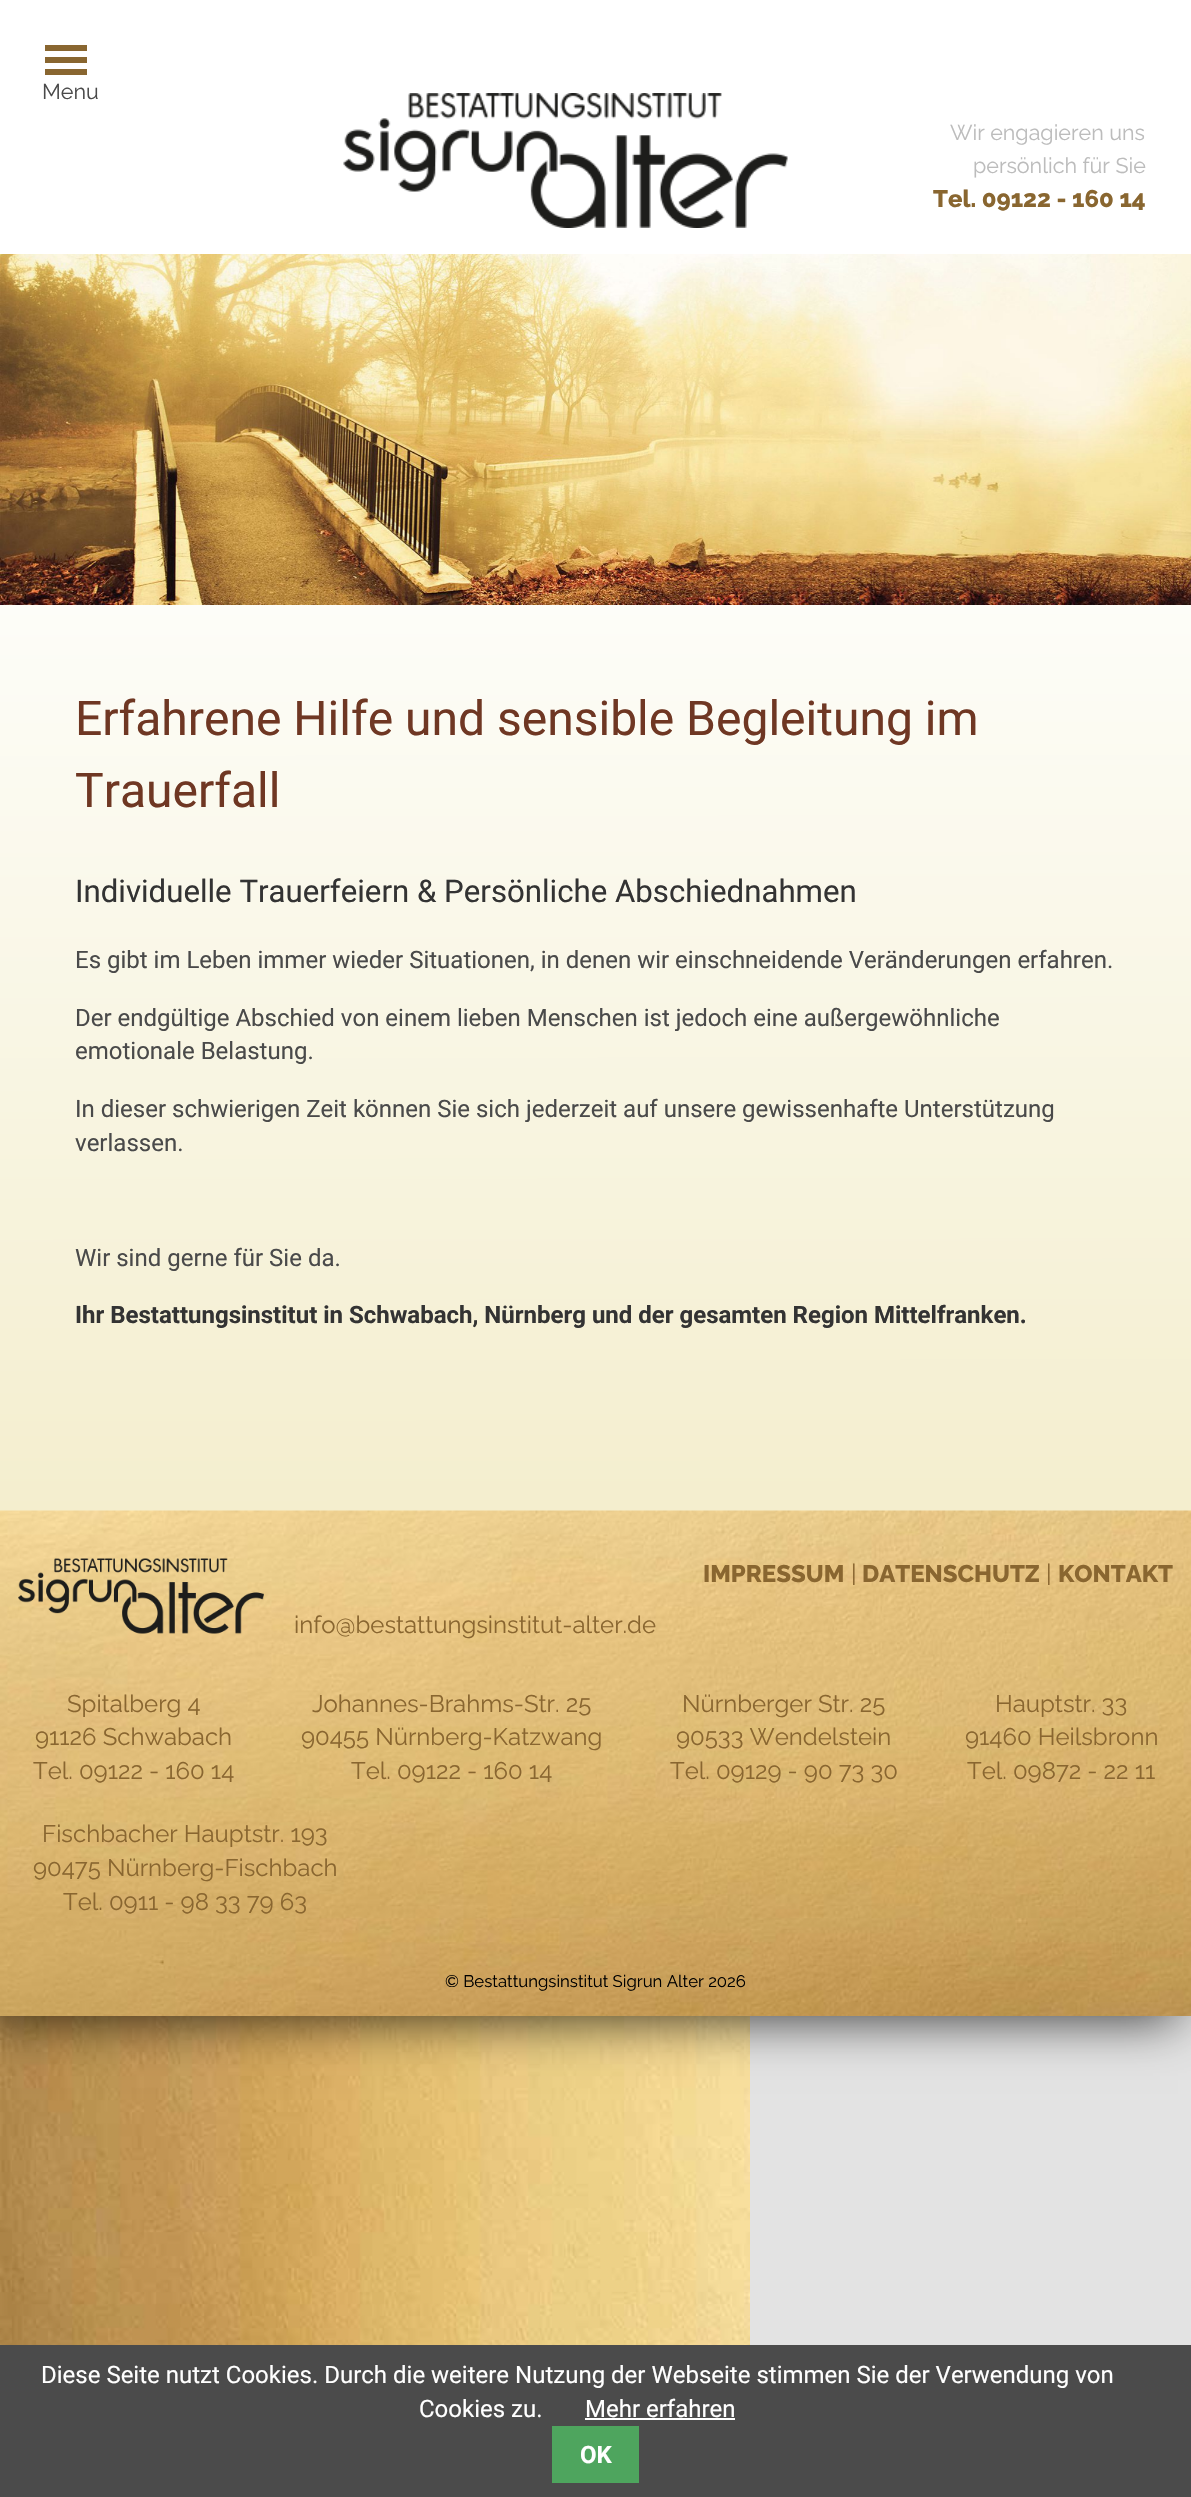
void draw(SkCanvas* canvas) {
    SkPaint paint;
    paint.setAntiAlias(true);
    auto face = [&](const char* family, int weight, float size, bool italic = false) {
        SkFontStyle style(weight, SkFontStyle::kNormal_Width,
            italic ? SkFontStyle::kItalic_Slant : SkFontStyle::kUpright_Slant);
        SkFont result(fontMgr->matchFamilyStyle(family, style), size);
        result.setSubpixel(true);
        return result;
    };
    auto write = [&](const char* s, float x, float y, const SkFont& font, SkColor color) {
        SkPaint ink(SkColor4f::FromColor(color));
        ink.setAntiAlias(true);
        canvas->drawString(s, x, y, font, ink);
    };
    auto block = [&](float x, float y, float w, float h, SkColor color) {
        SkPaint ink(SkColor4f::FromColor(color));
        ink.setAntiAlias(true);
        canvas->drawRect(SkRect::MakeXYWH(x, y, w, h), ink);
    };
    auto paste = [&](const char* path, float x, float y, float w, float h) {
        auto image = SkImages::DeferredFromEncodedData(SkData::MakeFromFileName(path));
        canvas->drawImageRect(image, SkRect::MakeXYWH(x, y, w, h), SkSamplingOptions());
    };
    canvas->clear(SkColorSetRGB(227, 227, 227));
    paste("pic1.png", 0, 2016, 750, 329);
    paint.setColor(SkColorSetARGB(191, 0, 0, 0));
    paint.setMaskFilter(SkMaskFilter::MakeBlur(kNormal_SkBlurStyle, 25));
    canvas->drawRect(SkRect::MakeXYWH(-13, 3, 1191, 2016), paint);
    paint.setMaskFilter(nullptr);
    block(0, 0, 1191, 254, SK_ColorWHITE);
    block(45, 57, 42, 6, SkColorSetRGB(137, 102, 48));
    block(45, 45, 42, 6, SkColorSetRGB(137, 102, 48));
    block(45, 69, 42, 6, SkColorSetRGB(137, 102, 48));
    auto kFont1 = face("Raleway", 100, 21.5f);
    write("Menu", 42, 99, kFont1, SkColorSetRGB(74, 74, 74));
    paste("pic2.png", 343, 93, 445, 135);
    write("Wir engagieren uns", 950, 140, kFont1, SkColorSetRGB(188, 188, 188));
    write("persönlich für Sie", 973, 173, kFont1, SkColorSetRGB(188, 188, 188));
    auto kFont2 = face("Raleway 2", 100, 24);
    write("Tel. 09122 - 160 14", 933, 207, kFont2, SkColorSetRGB(137, 102, 48));
    paste("pic3.png", 0, 254, 1191, 351);
    {
        const SkColor colors[] = {SkColorSetRGB(253, 253, 248), SkColorSetRGB(244, 238, 206)};
        const float stops[] = {0, 1};
        const SkPoint ends[] = {{595, 604}, {596, 1511}};
        paint.setShader(SkGradientShader::MakeLinear(ends, colors, stops, 2, SkTileMode::kClamp));
        paint.setAlpha(255);
    }
    canvas->drawRect(SkRect::MakeXYWH(0, 605, 1191, 906), paint);
    auto kFont3 = face("Roboto", 400, 48);
    write("Erfahrene Hilfe und sensible Begleitung im", 75, 735, kFont3, SkColorSetRGB(111, 55, 35));
    write("Trauerfall", 75, 807, kFont3, SkColorSetRGB(111, 55, 35));
    auto kFont4 = face("Roboto", 400, 31.2f);
    write("Individuelle Trauerfeiern & Persönliche Abschiednahmen", 75, 902, kFont4, SkColorSetRGB(51, 51, 51));
    auto kFont5 = face("Roboto", 400, 24);
    write("Es gibt im Leben immer wieder Situationen, in denen wir einschneidende Veränderungen erfahren.", 75, 968, kFont5, SkColorSetRGB(74, 74, 74));
    write("Der endgültige Abschied von einem lieben Menschen ist jedoch eine außergewöhnliche", 75, 1026, kFont5, SkColorSetRGB(74, 74, 74));
    write("emotionale Belastung.", 75, 1059, kFont5, SkColorSetRGB(74, 74, 74));
    write("In dieser schwierigen Zeit können Sie sich jederzeit auf unsere gewissenhafte Unterstützung", 75, 1117, kFont5, SkColorSetRGB(74, 74, 74));
    write("verlassen.", 75, 1151, kFont5, SkColorSetRGB(74, 74, 74));
    write("Wir sind gerne für Sie da.", 75, 1266, kFont5, SkColorSetRGB(74, 74, 74));
    auto kFont6 = face("Roboto", 700, 24);
    write("Ihr Bestattungsinstitut in Schwabach, Nürnberg und der gesamten Region Mittelfranken.", 75, 1323, kFont6, SkColorSetRGB(51, 51, 51));
    paste("pic4.png", 0, 1510, 1191, 506);
    write("IMPRESSUM", 703, 1582, kFont2, SkColorSetRGB(137, 102, 48));
    auto kFont7 = face("Raleway", 100, 24);
    write("|", 851, 1582, kFont7, SkColorSetRGB(137, 102, 48));
    write("DATENSCHUTZ", 862, 1582, kFont2, SkColorSetRGB(137, 102, 48));
    write("|", 1046, 1582, kFont7, SkColorSetRGB(137, 102, 48));
    write("KONTAKT", 1058, 1582, kFont2, SkColorSetRGB(137, 102, 48));
    paste("pic5.png", 18, 1558, 246, 76);
    write("info@bestattungsinstitut-alter.de", 294, 1633, kFont7, SkColorSetRGB(137, 102, 48));
    write("Spitalberg 4", 67, 1712, kFont7, SkColorSetRGB(137, 102, 48));
    write("91126 Schwabach", 35, 1745, kFont7, SkColorSetRGB(137, 102, 48));
    write("Tel. 09122 - 160 14", 33, 1779, kFont7, SkColorSetRGB(137, 102, 48));
    write("Johannes-Brahms-Str. 25", 312, 1712, kFont7, SkColorSetRGB(137, 102, 48));
    write("90455 Nürnberg-Katzwang", 301, 1745, kFont7, SkColorSetRGB(137, 102, 48));
    write("Tel. 09122 - 160 14", 351, 1779, kFont7, SkColorSetRGB(137, 102, 48));
    write("Nürnberger Str. 25", 682, 1712, kFont7, SkColorSetRGB(137, 102, 48));
    write("90533 Wendelstein", 676, 1745, kFont7, SkColorSetRGB(137, 102, 48));
    write("Tel. 09129 - 90 73 30", 670, 1779, kFont7, SkColorSetRGB(137, 102, 48));
    write("Hauptstr. 33", 995, 1712, kFont7, SkColorSetRGB(137, 102, 48));
    write("91460 Heilsbronn", 965, 1745, kFont7, SkColorSetRGB(137, 102, 48));
    write("Tel. 09872 - 22 11", 967, 1779, kFont7, SkColorSetRGB(137, 102, 48));
    write("Fischbacher Hauptstr. 193", 42, 1842, kFont7, SkColorSetRGB(137, 102, 48));
    write("90475 Nürnberg-Fischbach", 33, 1876, kFont7, SkColorSetRGB(137, 102, 48));
    write("Tel. 0911 - 98 33 79 63", 63, 1910, kFont7, SkColorSetRGB(137, 102, 48));
    auto kFont8 = face("Raleway", 100, 16.75f);
    write("© Bestattungsinstitut Sigrun Alter 2026", 445, 1987, kFont8, SK_ColorBLACK);
    block(0, 2345, 1191, 152, SkColorSetRGB(75, 75, 75));
    write("Diese Seite nutzt Cookies. Durch die weitere Nutzung der Webseite stimmen Sie der Verwendung von", 41, 2383, kFont5, SK_ColorWHITE);
    write("Cookies zu.", 419, 2417, kFont5, SK_ColorWHITE);
    write("Mehr erfahren", 585, 2417, kFont5, SK_ColorWHITE);
    block(585, 2418, 150, 2, SK_ColorWHITE);
    block(552, 2426, 87, 57, SkColorSetRGB(78, 165, 94));
    write("OK", 580, 2463, kFont6, SK_ColorWHITE);
}
